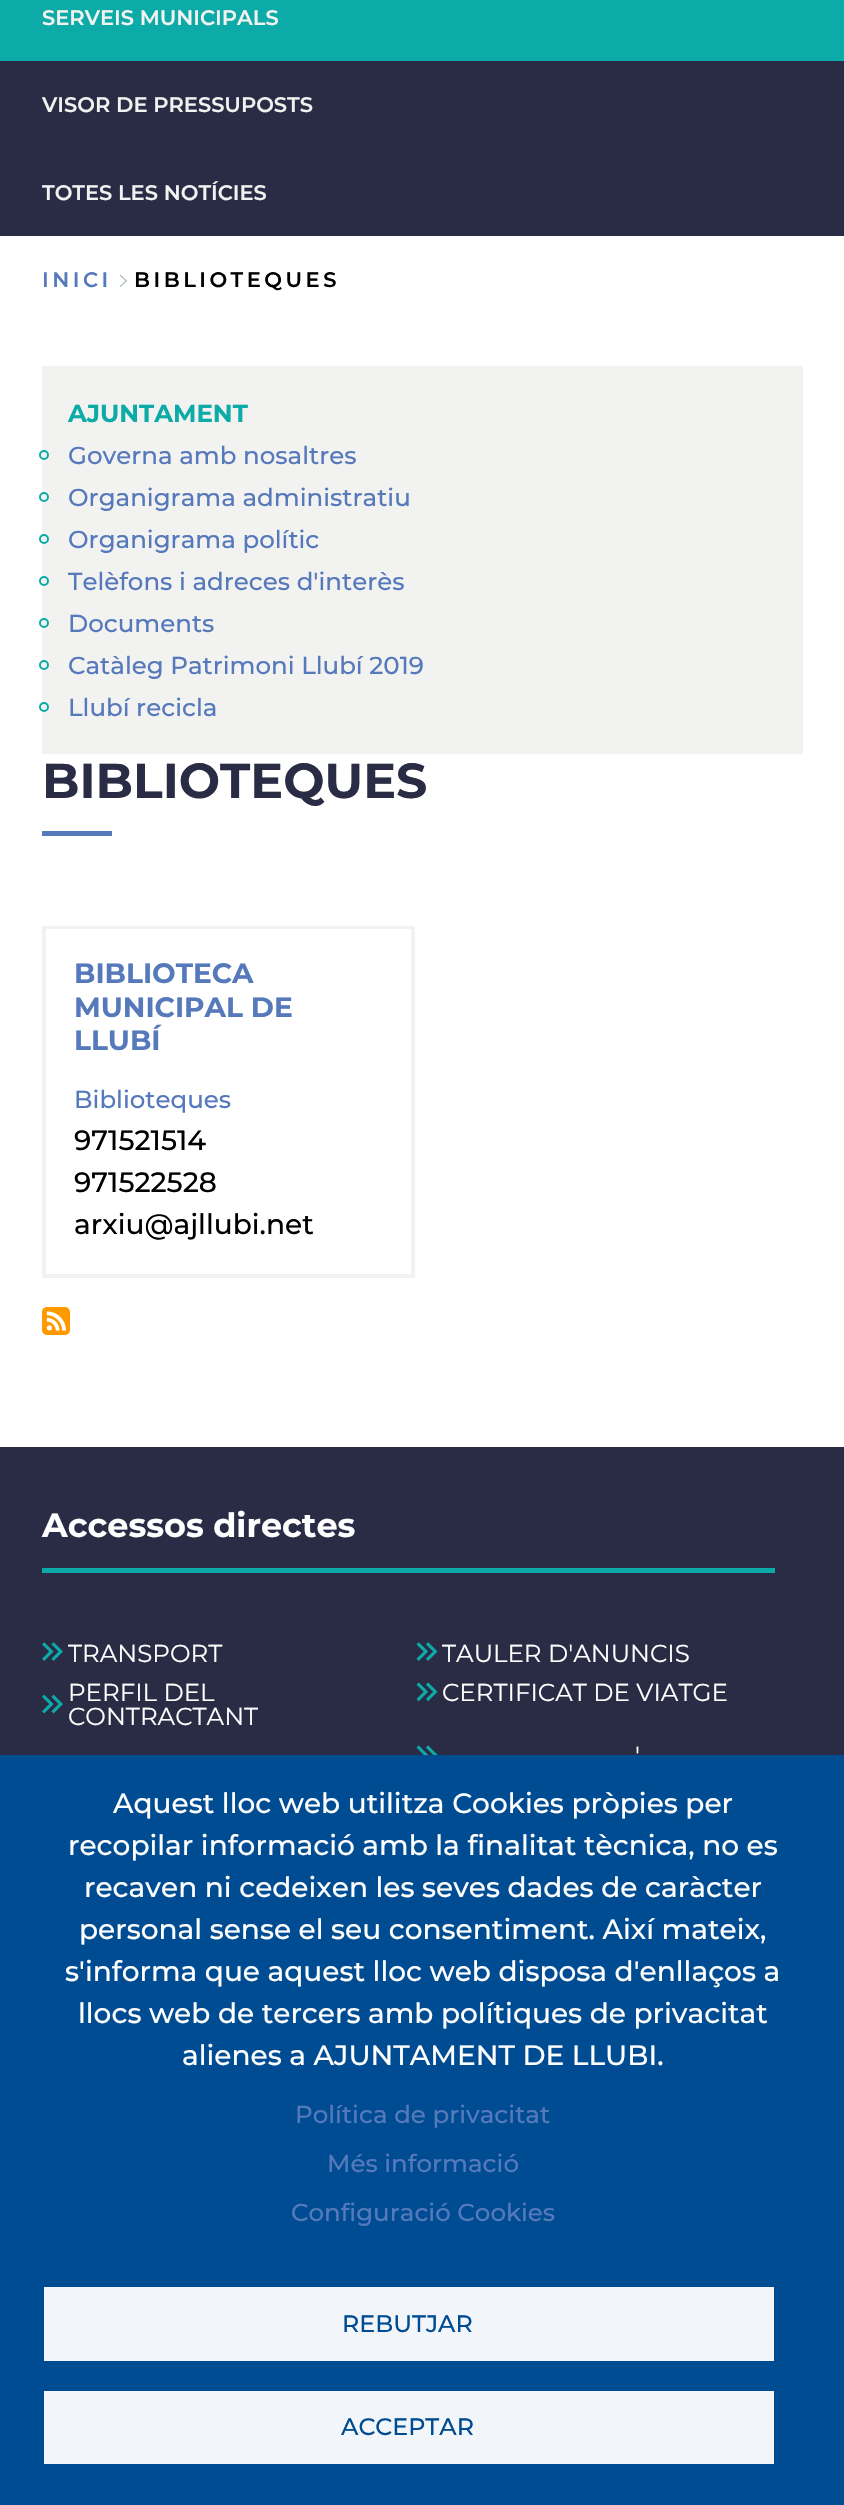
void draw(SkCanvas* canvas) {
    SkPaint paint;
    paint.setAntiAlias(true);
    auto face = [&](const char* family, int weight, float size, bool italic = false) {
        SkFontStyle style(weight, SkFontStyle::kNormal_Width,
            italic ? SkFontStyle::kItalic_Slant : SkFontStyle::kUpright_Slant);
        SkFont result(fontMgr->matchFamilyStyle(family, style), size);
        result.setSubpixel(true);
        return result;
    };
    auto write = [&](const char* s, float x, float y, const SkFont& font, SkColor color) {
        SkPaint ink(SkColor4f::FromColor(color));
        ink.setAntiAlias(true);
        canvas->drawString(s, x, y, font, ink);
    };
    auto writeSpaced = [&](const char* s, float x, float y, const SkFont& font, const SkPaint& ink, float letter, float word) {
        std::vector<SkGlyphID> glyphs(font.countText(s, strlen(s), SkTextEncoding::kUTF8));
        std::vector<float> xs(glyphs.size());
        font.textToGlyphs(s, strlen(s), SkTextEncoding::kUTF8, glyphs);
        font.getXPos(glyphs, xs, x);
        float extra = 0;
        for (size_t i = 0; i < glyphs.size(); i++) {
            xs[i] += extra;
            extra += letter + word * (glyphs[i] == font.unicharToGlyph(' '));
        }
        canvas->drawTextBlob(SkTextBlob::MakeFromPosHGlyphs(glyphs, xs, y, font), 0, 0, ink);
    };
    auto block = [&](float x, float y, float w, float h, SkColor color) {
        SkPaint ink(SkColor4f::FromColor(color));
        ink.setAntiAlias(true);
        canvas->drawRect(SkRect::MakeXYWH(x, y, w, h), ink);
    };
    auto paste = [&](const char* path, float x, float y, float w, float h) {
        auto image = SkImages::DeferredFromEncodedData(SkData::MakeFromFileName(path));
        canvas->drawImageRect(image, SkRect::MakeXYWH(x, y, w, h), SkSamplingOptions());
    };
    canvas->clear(SK_ColorWHITE);
    block(0, 61, 844, 175, SkColorSetRGB(41, 44, 68));
    block(0, 0, 844, 61, SkColorSetRGB(12, 171, 168));
    auto kFont1 = face("Montserrat", 600, 21);
    write("SERVEIS MUNICIPALS", 42, 25, kFont1, SkColorSetRGB(242, 242, 241));
    write("VISOR DE PRESSUPOSTS", 42, 112, kFont1, SkColorSetRGB(242, 242, 241));
    write("TOTES LES NOTÍCIES", 42, 200, kFont1, SkColorSetRGB(242, 242, 241));
    paint.setColor(SkColorSetRGB(85, 121, 187));
    writeSpaced("INICI", 42, 287, kFont1, paint, 3.5f, 0);
    paste("pic1.png", 119, 274, 8, 13);
    paint.setColor(SK_ColorBLACK);
    writeSpaced("BIBLIOTEQUES", 134, 287, kFont1, paint, 3.5f, 0);
    block(42, 366, 761, 388, SkColorSetRGB(242, 242, 241));
    auto kFont2 = face("Montserrat", 700, 24.5f);
    write("AJUNTAMENT", 68, 422, kFont2, SkColorSetRGB(12, 171, 168));
    paint.setStyle(SkPaint::kStroke_Style);
    paint.setStrokeWidth(2);
    paint.setColor(SkColorSetRGB(12, 171, 168));
    canvas->drawCircle(44, 455, 4, paint);
    auto kFont3 = face("Montserrat", 500, 24.5f);
    write("Governa amb nosaltres", 68, 464, kFont3, SkColorSetRGB(85, 121, 187));
    canvas->drawCircle(44, 497, 4, paint);
    write("Organigrama administratiu", 68, 506, kFont3, SkColorSetRGB(85, 121, 187));
    canvas->drawCircle(44, 539, 4, paint);
    write("Organigrama polític", 68, 548, kFont3, SkColorSetRGB(85, 121, 187));
    canvas->drawCircle(44, 581, 4, paint);
    write("Telèfons i adreces d'interès", 68, 590, kFont3, SkColorSetRGB(85, 121, 187));
    canvas->drawCircle(44, 623, 4, paint);
    write("Documents", 68, 632, kFont3, SkColorSetRGB(85, 121, 187));
    canvas->drawCircle(44, 665, 4, paint);
    write("Catàleg Patrimoni Llubí 2019", 68, 674, kFont3, SkColorSetRGB(85, 121, 187));
    canvas->drawCircle(44, 707, 4, paint);
    write("Llubí recicla", 68, 716, kFont3, SkColorSetRGB(85, 121, 187));
    auto kFont4 = face("Montserrat", 700, 49);
    write("BIBLIOTEQUES", 42, 798, kFont4, SkColorSetRGB(41, 44, 68));
    block(42, 831, 70, 5, SkColorSetRGB(85, 121, 187));
    paint.setStrokeWidth(4);
    paint.setColor(SkColorSetRGB(242, 242, 241));
    canvas->drawRect(SkRect::MakeXYWH(44, 928, 369, 348), paint);
    block(46, 929, 365, 1, SK_ColorWHITE);
    auto kFont5 = face("Montserrat", 700, 28);
    write("BIBLIOTECA", 74, 983, kFont5, SkColorSetRGB(85, 121, 187));
    write("MUNICIPAL DE", 74, 1017, kFont5, SkColorSetRGB(85, 121, 187));
    write("LLUBÍ", 74, 1050, kFont5, SkColorSetRGB(85, 121, 187));
    write("Biblioteques", 74, 1108, kFont3, SkColorSetRGB(85, 121, 187));
    auto kFont6 = face("Montserrat", 500, 28);
    write("971521514", 74, 1150, kFont6, SK_ColorBLACK);
    write("971522528", 74, 1192, kFont6, SK_ColorBLACK);
    write("arxiu@ajllubi.net", 74, 1234, kFont6, SK_ColorBLACK);
    paste("pic2.png", 42, 1307, 28, 28);
    block(0, 1447, 844, 308, SkColorSetRGB(41, 44, 68));
    auto kFont7 = face("Montserrat", 700, 33.5f);
    write("Accessos directes", 42, 1537, kFont7, SK_ColorWHITE);
    block(42, 1568, 733, 5, SkColorSetRGB(12, 171, 168));
    paste("pic3.png", 42, 1642, 21, 19);
    auto kFont8 = face("Montserrat", 400, 24.5f);
    write("TRANSPORT", 68, 1662, kFont8, SK_ColorWHITE);
    paste("pic4.png", 416, 1642, 22, 19);
    write("TAULER D'ANUNCIS", 442, 1662, kFont8, SK_ColorWHITE);
    write("PERFIL DEL", 68, 1701, kFont8, SK_ColorWHITE);
    paste("pic5.png", 42, 1694, 21, 20);
    write("CONTRACTANT", 68, 1725, kFont8, SK_ColorWHITE);
    paste("pic6.png", 416, 1682, 22, 20);
    write("CERTIFICAT DE VIATGE", 442, 1701, kFont8, SK_ColorWHITE);
    paste("pic7.png", 416, 1745, 22, 10);
    write("'", 635, 1764, kFont8, SK_ColorWHITE);
    block(0, 1755, 844, 750, SkColorSetRGB(0, 76, 147));
    write("Aquest lloc web utilitza Cookies pròpies per", 113, 1813, kFont6, SK_ColorWHITE);
    write("recopilar informació amb la finalitat tècnica, no es", 68, 1855, kFont6, SK_ColorWHITE);
    write("recaven ni cedeixen les seves dades de caràcter", 84, 1897, kFont6, SK_ColorWHITE);
    write("personal sense el seu consentiment. Així mateix,", 79, 1939, kFont6, SK_ColorWHITE);
    write("s'informa que aquest lloc web disposa d'enllaços a", 65, 1981, kFont6, SK_ColorWHITE);
    write("llocs web de tercers amb polítiques de privacitat", 78, 2023, kFont6, SK_ColorWHITE);
    write("alienes a AJUNTAMENT DE LLUBI.", 182, 2065, kFont6, SK_ColorWHITE);
    write("Política de privacitat", 295, 2123, kFont3, SkColorSetRGB(85, 121, 187));
    write("Més informació", 327, 2172, kFont3, SkColorSetRGB(85, 121, 187));
    write("Configuració Cookies", 291, 2221, kFont3, SkColorSetRGB(85, 121, 187));
    block(44, 2287, 730, 74, SkColorSetRGB(242, 246, 250));
    auto kFont9 = face("Montserrat", 500, 23.75f);
    write("REBUTJAR", 342, 2332, kFont9, SkColorSetRGB(0, 76, 147));
    block(44, 2391, 730, 73, SkColorSetRGB(242, 246, 250));
    write("ACCEPTAR", 341, 2435, kFont9, SkColorSetRGB(0, 76, 147));
}
